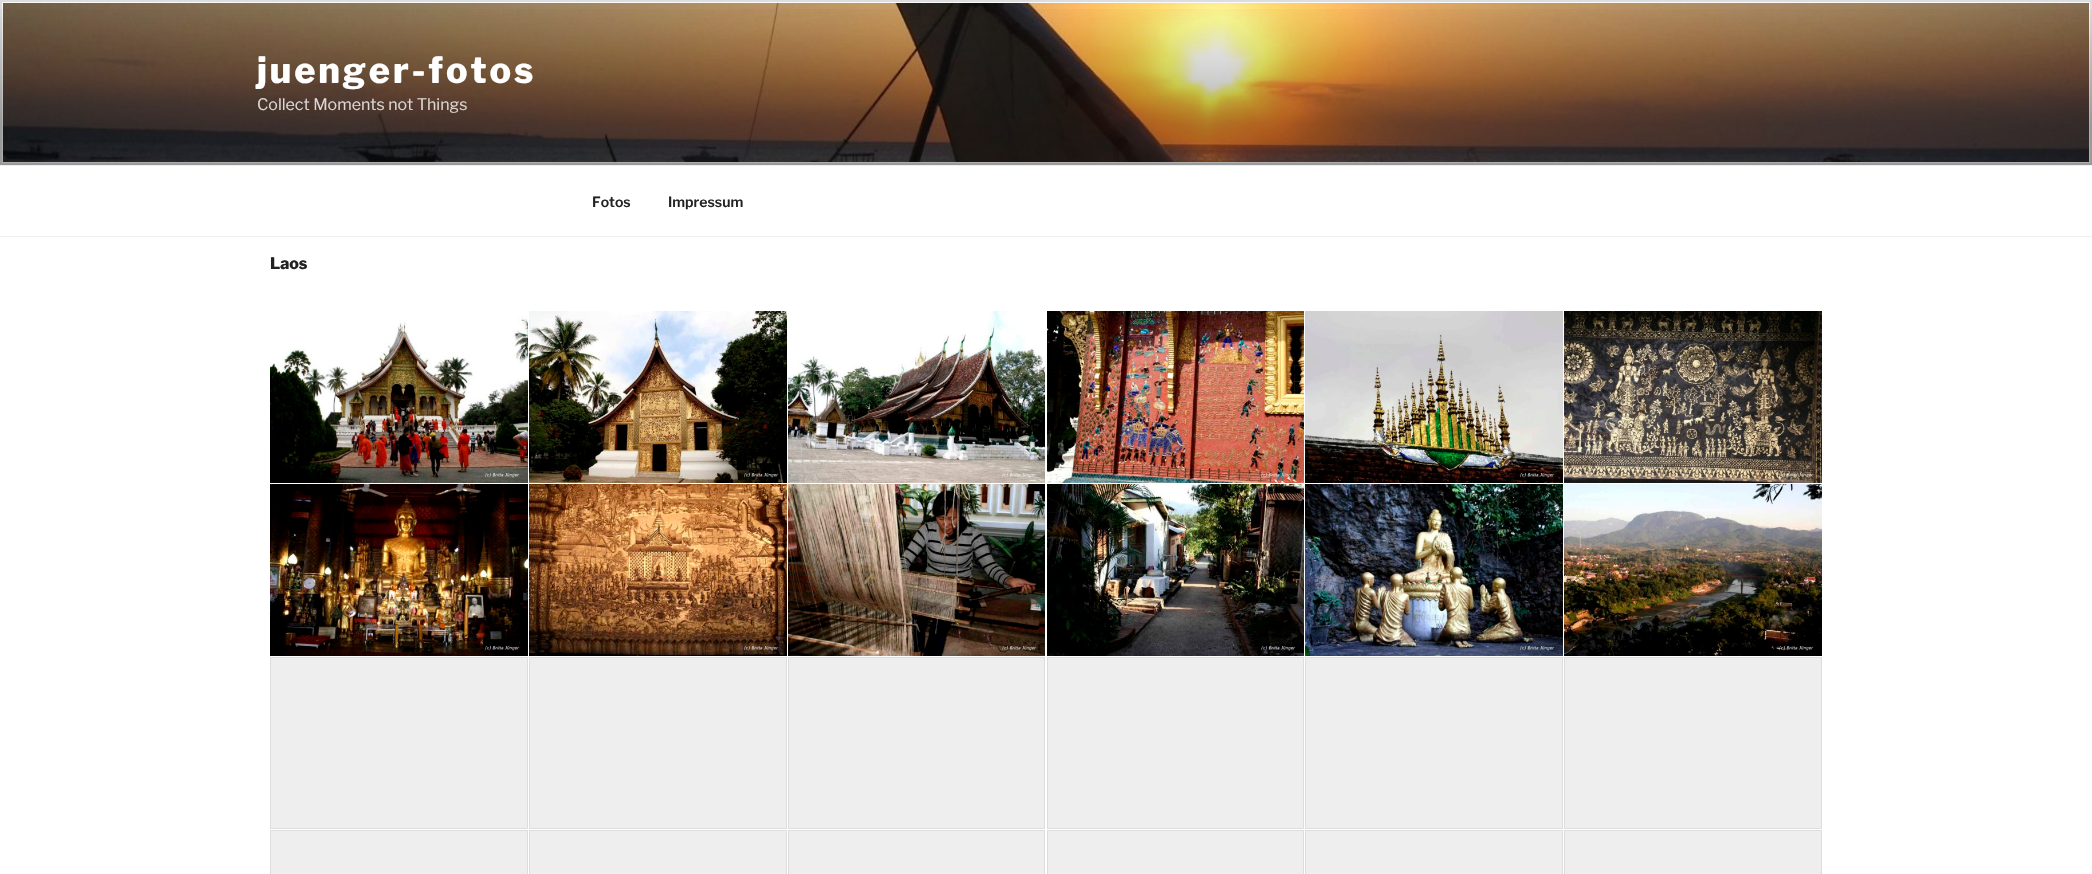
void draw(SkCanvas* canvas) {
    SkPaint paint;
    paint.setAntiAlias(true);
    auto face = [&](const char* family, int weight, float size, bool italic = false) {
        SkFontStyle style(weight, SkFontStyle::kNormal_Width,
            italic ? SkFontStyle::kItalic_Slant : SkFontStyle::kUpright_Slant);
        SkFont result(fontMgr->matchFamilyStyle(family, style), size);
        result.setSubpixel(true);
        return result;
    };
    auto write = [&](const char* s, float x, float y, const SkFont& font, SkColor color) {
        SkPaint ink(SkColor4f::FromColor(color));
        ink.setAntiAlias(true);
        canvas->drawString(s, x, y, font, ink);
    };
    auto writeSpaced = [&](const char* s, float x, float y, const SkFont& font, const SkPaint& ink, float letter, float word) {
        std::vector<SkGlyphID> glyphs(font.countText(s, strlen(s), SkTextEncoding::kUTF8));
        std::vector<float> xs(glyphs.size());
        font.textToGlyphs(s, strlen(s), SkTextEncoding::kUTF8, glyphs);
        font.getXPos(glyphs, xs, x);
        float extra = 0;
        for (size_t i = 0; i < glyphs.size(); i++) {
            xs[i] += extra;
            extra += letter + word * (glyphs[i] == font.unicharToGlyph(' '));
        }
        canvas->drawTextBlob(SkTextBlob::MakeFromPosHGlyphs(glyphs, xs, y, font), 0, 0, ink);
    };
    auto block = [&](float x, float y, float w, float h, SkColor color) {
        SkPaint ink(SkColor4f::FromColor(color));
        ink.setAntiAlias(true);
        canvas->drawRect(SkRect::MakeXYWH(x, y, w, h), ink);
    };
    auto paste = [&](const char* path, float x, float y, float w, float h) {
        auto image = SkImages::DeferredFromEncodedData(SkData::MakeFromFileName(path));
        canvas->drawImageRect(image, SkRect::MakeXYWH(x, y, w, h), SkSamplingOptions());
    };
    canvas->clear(SK_ColorWHITE);
    paint.setColor(SkColorSetRGB(250, 250, 250));
    canvas->drawRect(SkRect::MakeXYWH(1, 1, 2090, 163), paint);
    paint.setStyle(SkPaint::kStroke_Style);
    paint.setStrokeWidth(2);
    paint.setColor(SkColorSetRGB(221, 221, 221));
    canvas->drawRect(SkRect::MakeXYWH(1, 1, 2090, 163), paint);
    paste("pic1.png", 3, 3, 2086, 159);
    paint.setStyle(SkPaint::kFill_Style);
    {
        const SkColor colors[] = {SkColorSetARGB(0, 0, 0, 0), SkColorSetARGB(77, 0, 0, 0), SkColorSetARGB(77, 0, 0, 0)};
        const float stops[] = {0, 0.75f, 1};
        const SkPoint ends[] = {{1046, 0}, {1046, 165}};
        paint.setShader(SkGradientShader::MakeLinear(ends, colors, stops, 3, SkTileMode::kClamp));
        paint.setAlpha(255);
    }
    canvas->drawRect(SkRect::MakeXYWH(0, 9, 2092, 156), paint);
    auto kFont1 = face("Libre Franklin", 100, 36);
    paint.setShader(nullptr);
    paint.setColor(SK_ColorWHITE);
    writeSpaced("juenger-fotos", 257, 83, kFont1, paint, 2.9f, 0);
    auto kFont2 = face("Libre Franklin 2", 100, 16);
    write("Collect Moments not Things", 257, 110, kFont2, SkColorSetRGB(220, 215, 213));
    block(0, 165, 2092, 1, SkColorSetRGB(238, 238, 238));
    block(0, 236, 2092, 1, SkColorSetRGB(238, 238, 238));
    auto kFont3 = face("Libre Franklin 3", 100, 14);
    write("Fotos", 592, 207, kFont3, SkColorSetRGB(34, 34, 34));
    write("Impressum", 668, 207, kFont3, SkColorSetRGB(34, 34, 34));
    auto kFont4 = face("Libre Franklin", 100, 16);
    write("Laos", 270, 269, kFont4, SkColorSetRGB(34, 34, 34));
    paste("pic2.png", 270, 316, 258, 167);
    paste("pic3.png", 529, 311, 258, 172);
    paste("pic4.png", 788, 311, 257, 172);
    paste("pic5.png", 1047, 311, 257, 172);
    paste("pic6.png", 1305, 311, 258, 172);
    paste("pic7.png", 1564, 311, 258, 172);
    paste("pic8.png", 270, 484, 258, 172);
    paste("pic9.png", 529, 484, 258, 172);
    paste("pic10.png", 788, 484, 257, 172);
    paste("pic11.png", 1047, 484, 257, 172);
    paste("pic12.png", 1305, 484, 258, 172);
    paste("pic13.png", 1564, 484, 258, 172);
    paint.setColor(SkColorSetRGB(238, 238, 238));
    canvas->drawRect(SkRect::MakeXYWH(270.5f, 657.5f, 257, 171), paint);
    paint.setStyle(SkPaint::kStroke_Style);
    paint.setStrokeWidth(1);
    paint.setColor(SkColorSetRGB(221, 221, 221));
    canvas->drawRect(SkRect::MakeXYWH(270.5f, 657.5f, 257, 171), paint);
    paint.setStyle(SkPaint::kFill_Style);
    paint.setColor(SkColorSetRGB(238, 238, 238));
    canvas->drawRect(SkRect::MakeXYWH(529.5f, 657.5f, 257, 171), paint);
    paint.setStyle(SkPaint::kStroke_Style);
    paint.setColor(SkColorSetRGB(221, 221, 221));
    canvas->drawRect(SkRect::MakeXYWH(529.5f, 657.5f, 257, 171), paint);
    paint.setStyle(SkPaint::kFill_Style);
    paint.setColor(SkColorSetRGB(238, 238, 238));
    canvas->drawRect(SkRect::MakeXYWH(788.5f, 657.5f, 256, 171), paint);
    paint.setStyle(SkPaint::kStroke_Style);
    paint.setColor(SkColorSetRGB(221, 221, 221));
    canvas->drawRect(SkRect::MakeXYWH(788.5f, 657.5f, 256, 171), paint);
    paint.setStyle(SkPaint::kFill_Style);
    paint.setColor(SkColorSetRGB(238, 238, 238));
    canvas->drawRect(SkRect::MakeXYWH(1047.5f, 657.5f, 256, 171), paint);
    paint.setStyle(SkPaint::kStroke_Style);
    paint.setColor(SkColorSetRGB(221, 221, 221));
    canvas->drawRect(SkRect::MakeXYWH(1047.5f, 657.5f, 256, 171), paint);
    paint.setStyle(SkPaint::kFill_Style);
    paint.setColor(SkColorSetRGB(238, 238, 238));
    canvas->drawRect(SkRect::MakeXYWH(1305.5f, 657.5f, 257, 171), paint);
    paint.setStyle(SkPaint::kStroke_Style);
    paint.setColor(SkColorSetRGB(221, 221, 221));
    canvas->drawRect(SkRect::MakeXYWH(1305.5f, 657.5f, 257, 171), paint);
    paint.setStyle(SkPaint::kFill_Style);
    paint.setColor(SkColorSetRGB(238, 238, 238));
    canvas->drawRect(SkRect::MakeXYWH(1564.5f, 657.5f, 257, 171), paint);
    paint.setStyle(SkPaint::kStroke_Style);
    paint.setColor(SkColorSetRGB(221, 221, 221));
    canvas->drawRect(SkRect::MakeXYWH(1564.5f, 657.5f, 257, 171), paint);
    paint.setStyle(SkPaint::kFill_Style);
    paint.setColor(SkColorSetRGB(238, 238, 238));
    canvas->drawRect(SkRect::MakeXYWH(270.5f, 830.5f, 257, 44), paint);
    paint.setStyle(SkPaint::kStroke_Style);
    paint.setColor(SkColorSetRGB(221, 221, 221));
    canvas->drawRect(SkRect::MakeXYWH(270.5f, 830.5f, 257, 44), paint);
    paint.setStyle(SkPaint::kFill_Style);
    paint.setColor(SkColorSetRGB(238, 238, 238));
    canvas->drawRect(SkRect::MakeXYWH(529.5f, 830.5f, 257, 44), paint);
    paint.setStyle(SkPaint::kStroke_Style);
    paint.setColor(SkColorSetRGB(221, 221, 221));
    canvas->drawRect(SkRect::MakeXYWH(529.5f, 830.5f, 257, 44), paint);
    paint.setStyle(SkPaint::kFill_Style);
    paint.setColor(SkColorSetRGB(238, 238, 238));
    canvas->drawRect(SkRect::MakeXYWH(788.5f, 830.5f, 256, 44), paint);
    paint.setStyle(SkPaint::kStroke_Style);
    paint.setColor(SkColorSetRGB(221, 221, 221));
    canvas->drawRect(SkRect::MakeXYWH(788.5f, 830.5f, 256, 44), paint);
    paint.setStyle(SkPaint::kFill_Style);
    paint.setColor(SkColorSetRGB(238, 238, 238));
    canvas->drawRect(SkRect::MakeXYWH(1047.5f, 830.5f, 256, 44), paint);
    paint.setStyle(SkPaint::kStroke_Style);
    paint.setColor(SkColorSetRGB(221, 221, 221));
    canvas->drawRect(SkRect::MakeXYWH(1047.5f, 830.5f, 256, 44), paint);
    paint.setStyle(SkPaint::kFill_Style);
    paint.setColor(SkColorSetRGB(238, 238, 238));
    canvas->drawRect(SkRect::MakeXYWH(1305.5f, 830.5f, 257, 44), paint);
    paint.setStyle(SkPaint::kStroke_Style);
    paint.setColor(SkColorSetRGB(221, 221, 221));
    canvas->drawRect(SkRect::MakeXYWH(1305.5f, 830.5f, 257, 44), paint);
    paint.setStyle(SkPaint::kFill_Style);
    paint.setColor(SkColorSetRGB(238, 238, 238));
    canvas->drawRect(SkRect::MakeXYWH(1564.5f, 830.5f, 257, 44), paint);
    paint.setStyle(SkPaint::kStroke_Style);
    paint.setColor(SkColorSetRGB(221, 221, 221));
    canvas->drawRect(SkRect::MakeXYWH(1564.5f, 830.5f, 257, 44), paint);
}
